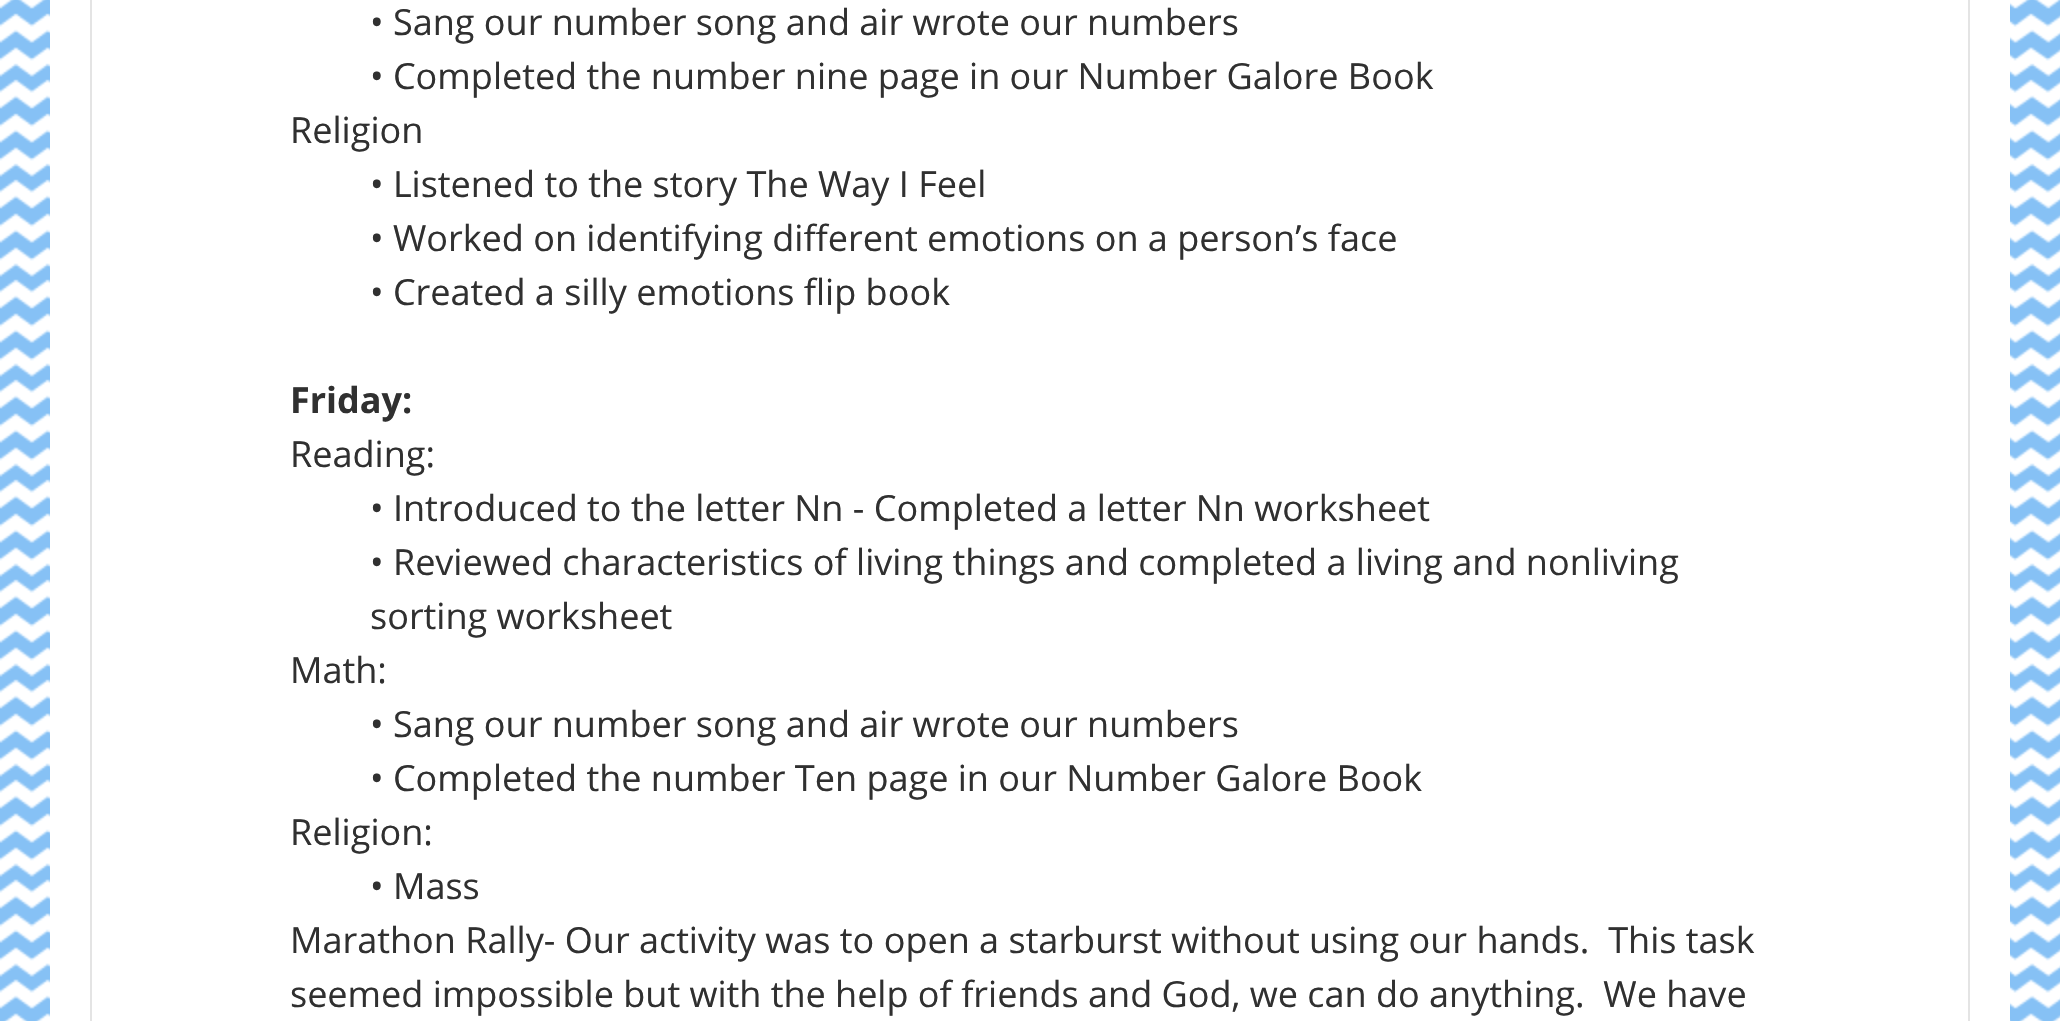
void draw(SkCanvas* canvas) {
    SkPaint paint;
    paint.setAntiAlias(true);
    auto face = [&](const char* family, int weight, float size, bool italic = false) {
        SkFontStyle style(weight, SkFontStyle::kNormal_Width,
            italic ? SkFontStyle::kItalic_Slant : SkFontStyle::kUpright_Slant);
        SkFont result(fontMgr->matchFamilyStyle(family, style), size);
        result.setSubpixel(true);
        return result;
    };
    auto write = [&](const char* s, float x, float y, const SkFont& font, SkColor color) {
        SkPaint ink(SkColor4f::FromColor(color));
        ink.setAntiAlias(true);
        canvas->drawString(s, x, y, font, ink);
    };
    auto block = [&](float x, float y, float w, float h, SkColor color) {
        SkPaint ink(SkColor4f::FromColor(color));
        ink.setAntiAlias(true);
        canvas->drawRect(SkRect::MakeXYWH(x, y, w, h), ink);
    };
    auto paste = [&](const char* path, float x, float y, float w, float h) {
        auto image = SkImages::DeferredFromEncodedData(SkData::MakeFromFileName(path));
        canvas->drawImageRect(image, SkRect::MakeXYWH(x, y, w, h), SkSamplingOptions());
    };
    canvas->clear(SkColorSetRGB(134, 193, 245));
    paste("pic1.png", 0, 0, 2060, 1021);
    block(50, 0, 1960, 1021, SK_ColorWHITE);
    paint.setStyle(SkPaint::kStroke_Style);
    paint.setStrokeWidth(2);
    paint.setColor(SkColorSetRGB(228, 228, 228));
    canvas->drawRect(SkRect::MakeXYWH(91, -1, 1878, 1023), paint);
    auto kFont1 = face("Open Sans", 400, 36);
    write("• Sang our number song and air wrote our numbers", 370, 35, kFont1, SkColorSetRGB(48, 48, 48));
    write("• Completed the number nine page in our Number Galore Book", 370, 89, kFont1, SkColorSetRGB(48, 48, 48));
    write("Religion", 290, 143, kFont1, SkColorSetRGB(48, 48, 48));
    write("• Listened to the story The Way I Feel", 370, 197, kFont1, SkColorSetRGB(48, 48, 48));
    write("• Worked on identifying different emotions on a person’s face", 370, 251, kFont1, SkColorSetRGB(48, 48, 48));
    write("• Created a silly emotions flip book", 370, 305, kFont1, SkColorSetRGB(48, 48, 48));
    auto kFont2 = face("Open Sans", 700, 36);
    write("Friday:", 290, 413, kFont2, SkColorSetRGB(48, 48, 48));
    write("Reading:", 290, 467, kFont1, SkColorSetRGB(48, 48, 48));
    write("• Introduced to the letter Nn - Completed a letter Nn worksheet", 370, 521, kFont1, SkColorSetRGB(48, 48, 48));
    write("• Reviewed characteristics of living things and completed a living and nonliving", 370, 575, kFont1, SkColorSetRGB(48, 48, 48));
    write("sorting worksheet", 370, 629, kFont1, SkColorSetRGB(48, 48, 48));
    write("Math:", 290, 683, kFont1, SkColorSetRGB(48, 48, 48));
    write("• Sang our number song and air wrote our numbers", 370, 737, kFont1, SkColorSetRGB(48, 48, 48));
    write("• Completed the number Ten page in our Number Galore Book", 370, 791, kFont1, SkColorSetRGB(48, 48, 48));
    write("Religion:", 290, 845, kFont1, SkColorSetRGB(48, 48, 48));
    write("• Mass", 370, 899, kFont1, SkColorSetRGB(48, 48, 48));
    write("Marathon Rally- Our activity was to open a starburst without using our hands.  This task", 290, 953, kFont1, SkColorSetRGB(48, 48, 48));
    write("seemed impossible but with the help of friends and God, we can do anything.  We have", 290, 1007, kFont1, SkColorSetRGB(48, 48, 48));
}
